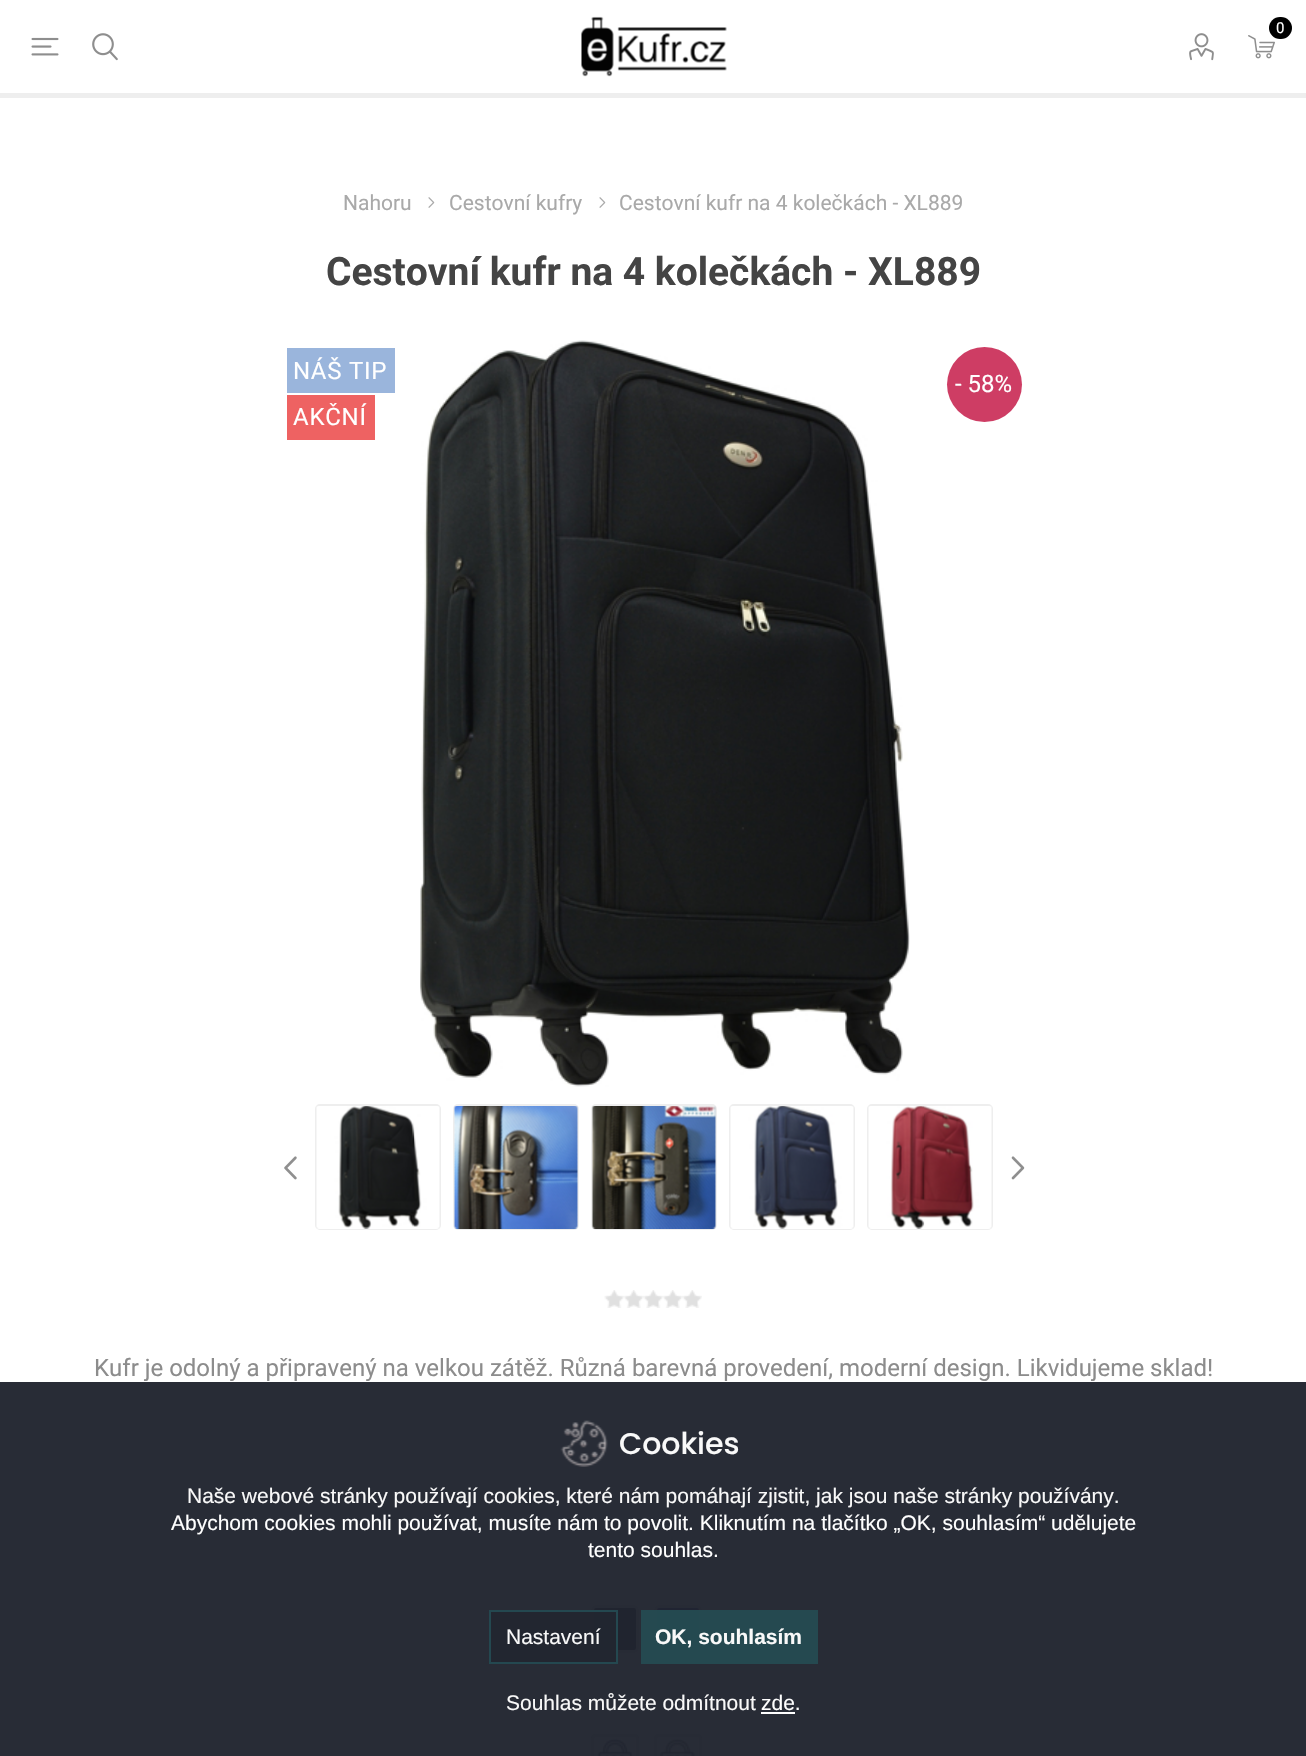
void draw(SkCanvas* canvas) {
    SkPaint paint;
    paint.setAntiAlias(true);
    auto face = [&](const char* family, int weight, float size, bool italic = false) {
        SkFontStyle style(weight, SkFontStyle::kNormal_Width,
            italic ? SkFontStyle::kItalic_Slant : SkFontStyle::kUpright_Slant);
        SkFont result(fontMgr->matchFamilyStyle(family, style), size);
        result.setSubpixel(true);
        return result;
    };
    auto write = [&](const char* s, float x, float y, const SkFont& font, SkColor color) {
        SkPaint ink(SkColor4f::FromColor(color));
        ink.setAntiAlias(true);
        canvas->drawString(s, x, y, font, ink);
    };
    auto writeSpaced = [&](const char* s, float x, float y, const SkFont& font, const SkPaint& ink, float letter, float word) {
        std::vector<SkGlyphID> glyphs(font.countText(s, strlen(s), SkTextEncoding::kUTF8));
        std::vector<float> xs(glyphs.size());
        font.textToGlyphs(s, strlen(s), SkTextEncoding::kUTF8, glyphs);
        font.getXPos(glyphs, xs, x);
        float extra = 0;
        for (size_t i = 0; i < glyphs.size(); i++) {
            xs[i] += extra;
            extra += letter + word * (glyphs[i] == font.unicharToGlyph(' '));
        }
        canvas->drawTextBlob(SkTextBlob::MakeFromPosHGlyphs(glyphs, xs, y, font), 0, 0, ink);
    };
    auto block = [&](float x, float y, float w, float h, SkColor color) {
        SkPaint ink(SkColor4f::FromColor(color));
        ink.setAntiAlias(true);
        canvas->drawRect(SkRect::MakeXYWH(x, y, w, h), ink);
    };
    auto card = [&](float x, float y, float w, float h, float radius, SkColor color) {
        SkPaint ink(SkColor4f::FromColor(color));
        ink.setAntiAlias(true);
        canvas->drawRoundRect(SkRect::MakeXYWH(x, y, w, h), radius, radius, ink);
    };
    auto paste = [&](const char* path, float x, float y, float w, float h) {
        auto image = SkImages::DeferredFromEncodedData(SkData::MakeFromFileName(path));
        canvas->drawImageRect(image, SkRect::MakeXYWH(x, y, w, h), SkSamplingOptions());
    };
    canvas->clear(SK_ColorWHITE);
    block(0, 1382, 1306, 374, SkColorSetRGB(40, 44, 54));
    block(0, 93, 1306, 5, SkColorSetRGB(238, 238, 238));
    paste("pic1.png", 581, 16, 146, 61);
    paste("pic2.png", 1248, 35, 27, 24);
    card(1269, 17, 23, 22, 11, SK_ColorBLACK);
    auto kFont1 = face("Roboto", 400, 15);
    write("0", 1276, 33, kFont1, SK_ColorWHITE);
    paste("pic3.png", 31, 37, 28, 19);
    paste("pic4.png", 92, 33, 26, 28);
    paste("pic5.png", 1189, 33, 25, 28);
    auto kFont2 = face("Roboto", 400, 21);
    write("Nahoru", 343, 210, kFont2, SkColorSetRGB(169, 169, 169));
    paste("pic6.png", 428, 197, 7, 11);
    write("Cestovní kufry", 449, 210, kFont2, SkColorSetRGB(169, 169, 169));
    paste("pic6.png", 599, 197, 7, 11);
    write("Cestovní kufr na 4 kolečkách - XL889", 619, 210, kFont2, SkColorSetRGB(169, 169, 169));
    auto kFont3 = face("Roboto", 700, 39);
    write("Cestovní kufr na 4 kolečkách - XL889", 326, 285, kFont3, SkColorSetRGB(68, 68, 68));
    block(287, 348, 108, 45, SkColorSetRGB(154, 181, 220));
    auto kFont4 = face("Roboto", 400, 24);
    paint.setColor(SK_ColorWHITE);
    writeSpaced("NÁŠ TIP", 293, 379, kFont4, paint, 0.75f, 0);
    paste("pic7.png", 420, 340, 490, 747);
    paint.setColor(SkColorSetRGB(206, 61, 100));
    canvas->drawCircle(984.5f, 384.5f, 37.5f, paint);
    write("- 58%", 955, 392, kFont4, SK_ColorWHITE);
    block(287, 395, 88, 45, SkColorSetRGB(238, 98, 98));
    paint.setColor(SK_ColorWHITE);
    writeSpaced("AKČNÍ", 293, 425, kFont4, paint, 0.75f, 0);
    paste("pic8.png", 284, 1156, 13, 24);
    paint.setStyle(SkPaint::kStroke_Style);
    paint.setStrokeWidth(2);
    paint.setColor(SkColorSetRGB(238, 238, 238));
    canvas->drawRoundRect(SkRect::MakeXYWH(316, 1105, 124, 124), 4, 4, paint);
    paste("pic9.png", 316, 1106, 124, 123);
    canvas->drawRoundRect(SkRect::MakeXYWH(454, 1105, 124, 124), 4, 4, paint);
    paste("pic10.png", 454, 1106, 124, 123);
    canvas->drawRoundRect(SkRect::MakeXYWH(592, 1105, 124, 124), 4, 4, paint);
    paste("pic11.png", 592, 1106, 124, 123);
    canvas->drawRoundRect(SkRect::MakeXYWH(730, 1105, 124, 124), 4, 4, paint);
    paste("pic12.png", 730, 1106, 124, 123);
    canvas->drawRoundRect(SkRect::MakeXYWH(868, 1105, 124, 124), 4, 4, paint);
    paste("pic13.png", 868, 1106, 124, 123);
    paste("pic14.png", 1011, 1156, 14, 24);
    paste("pic15.png", 604, 1290, 98, 18);
    write("Kufr je odolný a připravený na velkou zátěž. Různá barevná provedení, moderní design. Likvidujeme sklad!", 94, 1376, kFont4, SkColorSetRGB(140, 140, 140));
    paint.setStyle(SkPaint::kFill_Style);
    paint.setColor(SkColorSetRGB(32, 36, 47));
    canvas->drawRoundRect(SkRect::MakeXYWH(592.5f, 1606.5f, 45, 45), 3.5f, 3.5f, paint);
    paint.setStyle(SkPaint::kStroke_Style);
    paint.setStrokeWidth(3);
    paint.setColor(SkColorSetRGB(39, 43, 53));
    canvas->drawRoundRect(SkRect::MakeXYWH(592.5f, 1606.5f, 45, 45), 3.5f, 3.5f, paint);
    paint.setStyle(SkPaint::kFill_Style);
    paint.setColor(SkColorSetRGB(32, 36, 50));
    canvas->drawRoundRect(SkRect::MakeXYWH(655.5f, 1606.5f, 45, 45), 3.5f, 3.5f, paint);
    paint.setStyle(SkPaint::kStroke_Style);
    paint.setColor(SkColorSetRGB(39, 43, 53));
    canvas->drawRoundRect(SkRect::MakeXYWH(655.5f, 1606.5f, 45, 45), 3.5f, 3.5f, paint);
    paste("pic16.png", 591, 1734, 48, 22);
    canvas->drawRoundRect(SkRect::MakeXYWH(592.5f, 1735.5f, 45, 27), 3.5f, 3.5f, paint);
    paste("pic17.png", 654, 1734, 48, 22);
    canvas->drawRoundRect(SkRect::MakeXYWH(655.5f, 1735.5f, 45, 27), 3.5f, 3.5f, paint);
    paste("pic18.png", 560, 1420, 48, 47);
    auto kFont5 = face("Poppins", 500, 30);
    write("Cookies", 619, 1454, kFont5, SkColorSetRGB(249, 249, 249));
    auto kFont6 = face("Liberation Sans", 400, 21);
    write("Naše webové stránky používají cookies, které nám pomáhají zjistit, jak jsou naše stránky používány.", 187, 1503, kFont6, SkColorSetRGB(249, 249, 249));
    write("Abychom cookies mohli používat, musíte nám to povolit. Kliknutím na tlačítko „OK, souhlasím“ udělujete", 171, 1530, kFont6, SK_ColorWHITE);
    write("tento souhlas.", 588, 1557, kFont6, SK_ColorWHITE);
    paint.setStyle(SkPaint::kFill_Style);
    paint.setColor(SkColorSetARGB(247, 33, 37, 48));
    canvas->drawRect(SkRect::MakeXYWH(490, 1611, 127, 52), paint);
    paint.setStyle(SkPaint::kStroke_Style);
    paint.setStrokeWidth(2);
    paint.setColor(SkColorSetRGB(36, 72, 80));
    canvas->drawRect(SkRect::MakeXYWH(490, 1611, 127, 52), paint);
    write("Nastavení", 506, 1644, kFont6, SkColorSetRGB(249, 249, 249));
    block(641, 1610, 177, 54, SkColorSetARGB(247, 36, 73, 81));
    auto kFont7 = face("Liberation Sans", 700, 21);
    write("OK, souhlasím", 655, 1644, kFont7, SkColorSetRGB(249, 249, 249));
    write("Souhlas můžete odmítnout", 506, 1710, kFont6, SkColorSetRGB(249, 249, 249));
    write("zde.", 761, 1710, kFont6, SK_ColorWHITE);
    block(761, 1712, 34, 2, SK_ColorWHITE);
}
